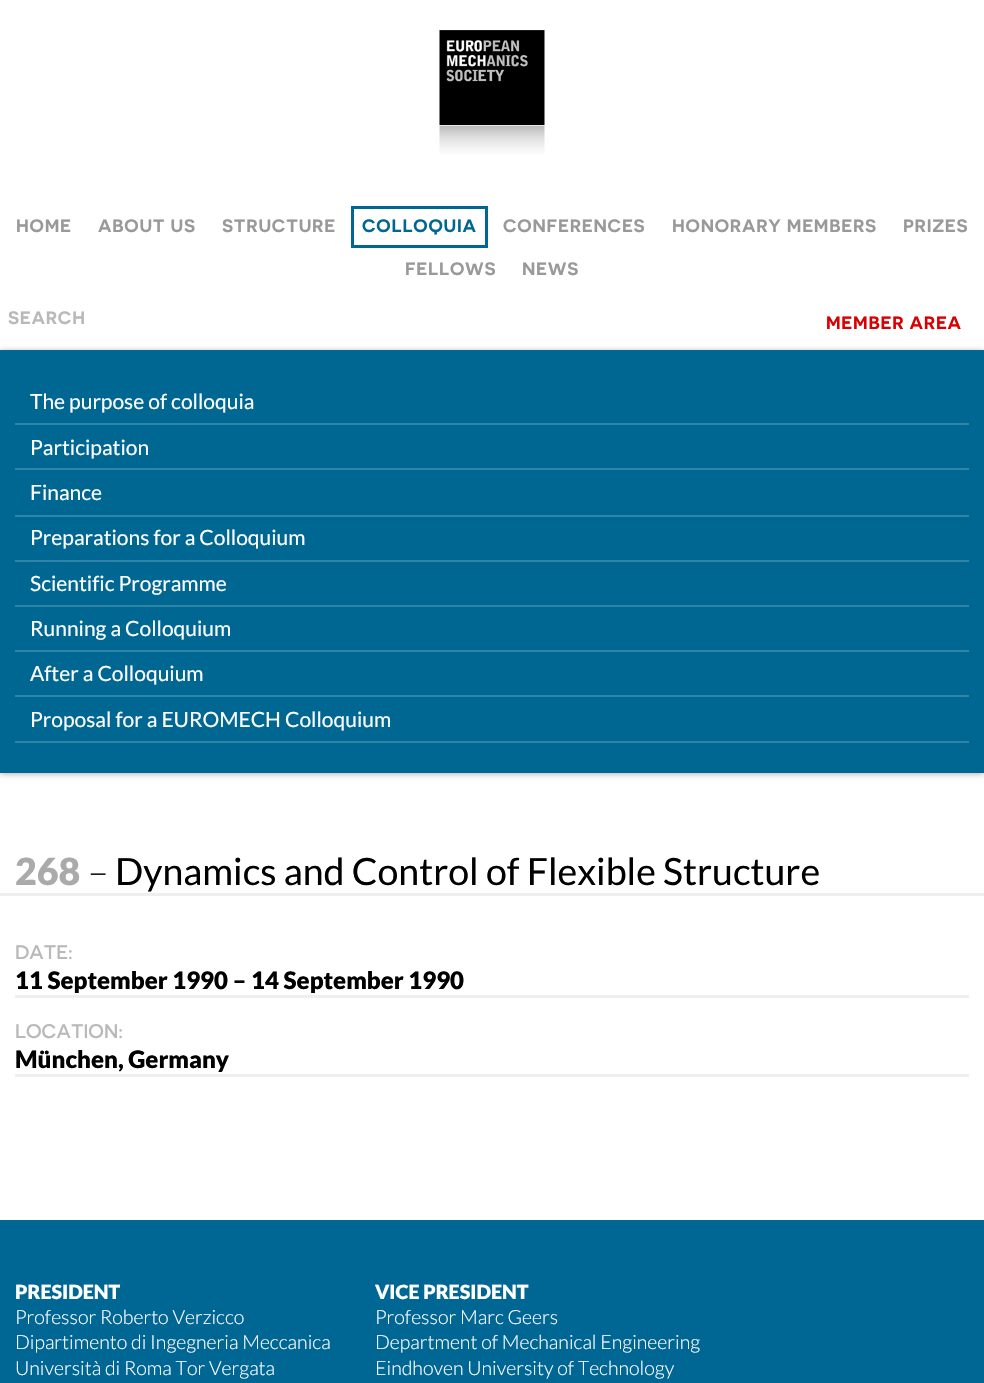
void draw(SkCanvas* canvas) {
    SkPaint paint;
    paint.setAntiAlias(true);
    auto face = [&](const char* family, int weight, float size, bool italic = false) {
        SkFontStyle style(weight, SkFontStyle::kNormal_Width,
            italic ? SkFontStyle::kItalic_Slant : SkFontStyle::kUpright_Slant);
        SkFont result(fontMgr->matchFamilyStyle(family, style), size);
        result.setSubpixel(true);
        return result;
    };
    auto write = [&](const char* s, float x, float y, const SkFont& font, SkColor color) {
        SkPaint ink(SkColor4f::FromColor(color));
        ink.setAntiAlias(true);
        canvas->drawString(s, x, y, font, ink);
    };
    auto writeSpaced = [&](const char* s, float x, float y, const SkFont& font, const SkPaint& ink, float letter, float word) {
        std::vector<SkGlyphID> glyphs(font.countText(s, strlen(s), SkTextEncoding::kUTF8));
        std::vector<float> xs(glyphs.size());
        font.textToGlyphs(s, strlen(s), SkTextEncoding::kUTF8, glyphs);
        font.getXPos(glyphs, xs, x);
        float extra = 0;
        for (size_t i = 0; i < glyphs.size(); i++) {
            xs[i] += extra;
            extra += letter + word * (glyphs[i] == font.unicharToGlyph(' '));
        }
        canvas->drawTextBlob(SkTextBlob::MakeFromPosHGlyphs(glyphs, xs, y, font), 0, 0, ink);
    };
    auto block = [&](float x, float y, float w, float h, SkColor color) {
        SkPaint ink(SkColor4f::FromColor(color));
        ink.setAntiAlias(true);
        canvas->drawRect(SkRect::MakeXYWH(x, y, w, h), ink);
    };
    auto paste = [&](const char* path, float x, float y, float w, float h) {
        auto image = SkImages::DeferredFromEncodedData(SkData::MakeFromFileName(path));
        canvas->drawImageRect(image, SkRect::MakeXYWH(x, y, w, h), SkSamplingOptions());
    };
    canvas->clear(SK_ColorWHITE);
    paste("pic1.png", 439, 30, 106, 124);
    auto kFont1 = face("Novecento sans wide", 600, 18);
    paint.setColor(SkColorSetRGB(153, 153, 153));
    writeSpaced("HOME", 16, 232, kFont1, paint, 0.75f, 0);
    writeSpaced("ABOUT US", 98, 232, kFont1, paint, 0.75f, 0);
    writeSpaced("STRUCTURE", 222, 232, kFont1, paint, 0.75f, 0);
    paint.setStyle(SkPaint::kStroke_Style);
    paint.setStrokeWidth(3);
    paint.setColor(SkColorSetRGB(0, 103, 146));
    canvas->drawRect(SkRect::MakeXYWH(352.5f, 207.5f, 134, 39), paint);
    paint.setStyle(SkPaint::kFill_Style);
    writeSpaced("COLLOQUIA", 362, 232, kFont1, paint, 0.75f, 0);
    paint.setColor(SkColorSetRGB(153, 153, 153));
    writeSpaced("CONFERENCES", 503, 232, kFont1, paint, 0.75f, 0);
    writeSpaced("HONORARY MEMBERS", 672, 232, kFont1, paint, 0.75f, 0);
    writeSpaced("PRIZES", 903, 232, kFont1, paint, 0.75f, 0);
    writeSpaced("FELLOWS", 405, 275, kFont1, paint, 0.75f, 0);
    writeSpaced("NEWS", 522, 275, kFont1, paint, 0.75f, 0);
    paint.setColor(SkColorSetRGB(185, 185, 185));
    writeSpaced("SEARCH", 8, 324, kFont1, paint, 0.75f, 0);
    paint.setColor(SkColorSetRGB(216, 0, 0));
    writeSpaced("MEMBER AREA", 826, 329, kFont1, paint, 0.75f, 0);
    paint.setColor(SkColorSetARGB(77, 0, 0, 0));
    paint.setMaskFilter(SkMaskFilter::MakeBlur(kNormal_SkBlurStyle, 3));
    canvas->drawRect(SkRect::MakeXYWH(0, 351, 984, 423), paint);
    paint.setMaskFilter(nullptr);
    block(0, 350, 984, 423, SkColorSetRGB(0, 103, 146));
    block(15, 423, 954, 2, SkColorSetRGB(48, 132, 167));
    auto kFont2 = face("Lato", 400, 21);
    write("The purpose of colloquia", 30, 409, kFont2, SK_ColorWHITE);
    block(15, 468, 954, 2, SkColorSetRGB(48, 132, 167));
    write("Participation", 30, 455, kFont2, SK_ColorWHITE);
    block(15, 515, 954, 2, SkColorSetRGB(48, 132, 167));
    write("Finance", 30, 500, kFont2, SK_ColorWHITE);
    block(15, 560, 954, 2, SkColorSetRGB(48, 132, 167));
    write("Preparations for a Colloquium", 30, 545, kFont2, SK_ColorWHITE);
    block(15, 605, 954, 2, SkColorSetRGB(48, 132, 167));
    write("Scientific Programme", 30, 591, kFont2, SK_ColorWHITE);
    block(15, 650, 954, 2, SkColorSetRGB(48, 132, 167));
    write("Running a Colloquium", 30, 636, kFont2, SK_ColorWHITE);
    block(15, 695, 954, 2, SkColorSetRGB(48, 132, 167));
    write("After a Colloquium", 30, 681, kFont2, SK_ColorWHITE);
    block(15, 741, 954, 2, SkColorSetRGB(48, 132, 167));
    write("Proposal for a EUROMECH Colloquium", 30, 727, kFont2, SK_ColorWHITE);
    block(0, 893, 984, 3, SkColorSetRGB(238, 238, 238));
    auto kFont3 = face("Lato", 900, 37.5f);
    write("268", 15, 885, kFont3, SkColorSetRGB(170, 170, 170));
    auto kFont4 = face("Lato", 300, 37.5f);
    write("–", 88, 885, kFont4, SK_ColorBLACK);
    auto kFont5 = face("Lato", 400, 37.5f);
    write("Dynamics and Control of Flexible Structure", 115, 885, kFont5, SK_ColorBLACK);
    block(15, 995, 954, 3, SkColorSetRGB(238, 238, 238));
    auto kFont6 = face("Novecento sans wide", 500, 19.5f);
    write("DATE:", 15, 959, kFont6, SkColorSetRGB(185, 185, 185));
    auto kFont7 = face("Lato", 900, 24);
    write("11 September 1990 – 14 September 1990", 15, 989, kFont7, SK_ColorBLACK);
    block(15, 1074, 954, 3, SkColorSetRGB(238, 238, 238));
    write("LOCATION:", 15, 1038, kFont6, SkColorSetRGB(185, 185, 185));
    write("München, Germany", 15, 1068, kFont7, SK_ColorBLACK);
    block(0, 1220, 984, 163, SkColorSetRGB(0, 102, 148));
    auto kFont8 = face("Lato", 900, 19.5f);
    write("PRESIDENT", 15, 1299, kFont8, SK_ColorWHITE);
    auto kFont9 = face("Lato", 300, 19.5f);
    write("Professor Roberto Verzicco", 15, 1324, kFont9, SK_ColorWHITE);
    write("Dipartimento di Ingegneria Meccanica", 15, 1349, kFont9, SK_ColorWHITE);
    write("Università di Roma Tor Vergata", 15, 1375, kFont9, SK_ColorWHITE);
    write("VICE PRESIDENT", 375, 1299, kFont8, SK_ColorWHITE);
    write("Professor Marc Geers", 375, 1324, kFont9, SK_ColorWHITE);
    write("Department of Mechanical Engineering", 375, 1349, kFont9, SK_ColorWHITE);
    write("Eindhoven University of Technology", 375, 1375, kFont9, SK_ColorWHITE);
}
